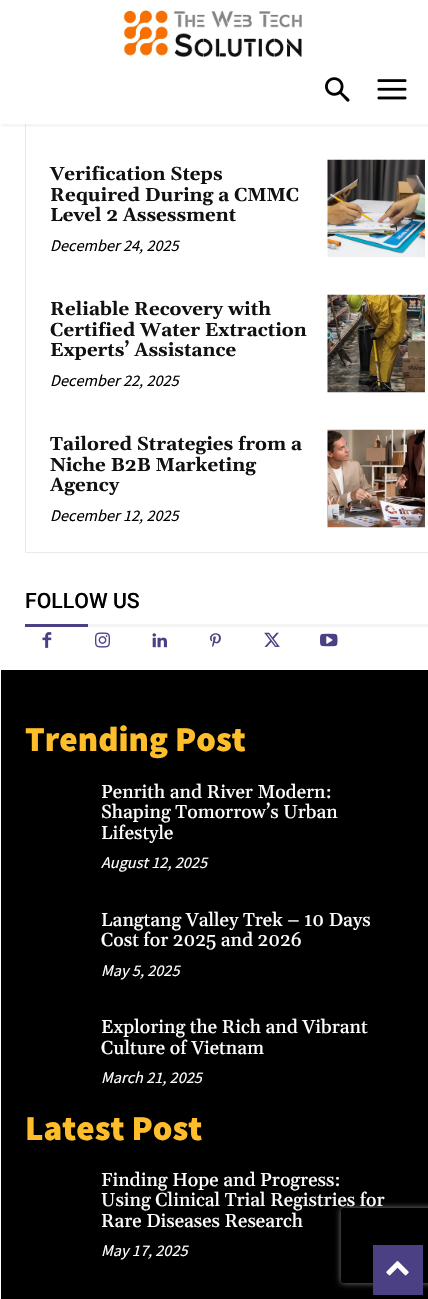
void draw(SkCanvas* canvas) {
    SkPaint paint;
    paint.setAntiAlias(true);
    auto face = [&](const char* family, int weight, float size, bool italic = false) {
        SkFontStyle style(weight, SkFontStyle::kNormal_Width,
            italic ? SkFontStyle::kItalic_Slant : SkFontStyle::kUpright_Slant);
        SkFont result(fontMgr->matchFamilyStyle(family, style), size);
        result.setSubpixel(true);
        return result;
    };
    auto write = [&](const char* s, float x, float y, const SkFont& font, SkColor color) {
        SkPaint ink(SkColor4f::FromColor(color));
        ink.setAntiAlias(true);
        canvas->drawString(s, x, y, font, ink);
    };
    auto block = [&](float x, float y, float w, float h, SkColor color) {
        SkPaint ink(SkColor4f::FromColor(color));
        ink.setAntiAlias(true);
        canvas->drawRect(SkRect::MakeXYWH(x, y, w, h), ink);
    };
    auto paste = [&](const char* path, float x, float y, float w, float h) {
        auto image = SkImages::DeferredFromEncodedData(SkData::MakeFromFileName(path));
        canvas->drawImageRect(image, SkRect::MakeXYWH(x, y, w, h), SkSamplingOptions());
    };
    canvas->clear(SK_ColorWHITE);
    paint.setStyle(SkPaint::kStroke_Style);
    paint.setStrokeWidth(1);
    paint.setColor(SkColorSetRGB(234, 234, 234));
    canvas->drawRect(SkRect::MakeXYWH(25.5f, -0.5f, 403, 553), paint);
    block(25, 0, 1, 124, SK_ColorWHITE);
    paste("pic1.png", 123, 9, 179, 48);
    paste("pic2.png", 325, 77, 25, 25);
    paste("pic3.png", 377, 79, 30, 21);
    canvas->save();
    canvas->clipRect(SkRect::MakeXYWH(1, 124, 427, 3));
    paint.setStyle(SkPaint::kFill_Style);
    paint.setColor(SkColorSetARGB(15, 0, 0, 0));
    paint.setMaskFilter(SkMaskFilter::MakeBlur(kNormal_SkBlurStyle, 2.5f));
    canvas->drawRect(SkRect::MakeXYWH(1, 3, 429, 123), paint);
    paint.setMaskFilter(nullptr);
    canvas->restore();
    auto kFont1 = face("Gelasio", 700, 18.75f);
    write("Verification Steps", 50, 180, kFont1, SkColorSetRGB(17, 17, 17));
    write("Required During a CMMC", 50, 201, kFont1, SkColorSetRGB(17, 17, 17));
    write("Level 2 Assessment", 50, 221, kFont1, SkColorSetRGB(17, 17, 17));
    auto kFont2 = face("Source Sans Pro", 400, 16.25f, true);
    write("December 24, 2025", 50, 251, kFont2, SK_ColorBLACK);
    paste("pic4.png", 327, 159, 98, 99);
    write("Reliable Recovery with", 50, 315, kFont1, SkColorSetRGB(17, 17, 17));
    write("Certified Water Extraction", 50, 336, kFont1, SkColorSetRGB(17, 17, 17));
    write("Experts’ Assistance", 50, 356, kFont1, SkColorSetRGB(17, 17, 17));
    write("December 22, 2025", 50, 386, kFont2, SK_ColorBLACK);
    paste("pic5.png", 327, 294, 98, 99);
    write("Tailored Strategies from a", 50, 450, kFont1, SkColorSetRGB(17, 17, 17));
    write("Niche B2B Marketing", 50, 471, kFont1, SkColorSetRGB(17, 17, 17));
    write("Agency", 50, 491, kFont1, SkColorSetRGB(17, 17, 17));
    write("December 12, 2025", 50, 521, kFont2, SK_ColorBLACK);
    paste("pic6.png", 327, 429, 98, 99);
    auto kFont3 = face("Roboto", 500, 21.25f);
    write("FOLLOW US", 25, 608, kFont3, SK_ColorBLACK);
    block(25, 624, 63, 3, SkColorSetRGB(76, 64, 132));
    block(88, 624, 340, 3, SkColorSetRGB(245, 245, 245));
    paste("pic7.png", 42, 632, 10, 16);
    paste("pic8.png", 95, 632, 15, 16);
    paste("pic9.png", 152, 633, 15, 15);
    paste("pic10.png", 210, 633, 11, 15);
    paste("pic11.png", 264, 632, 16, 15);
    paste("pic12.png", 320, 633, 18, 14);
    block(1, 670, 427, 629, SK_ColorBLACK);
    auto kFont4 = face("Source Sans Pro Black", 900, 35);
    write("Trending Post", 25, 751, kFont4, SkColorSetRGB(254, 190, 43));
    auto kFont5 = face("Gelasio", 500, 18.75f);
    write("Penrith and River Modern:", 101, 798, kFont5, SK_ColorWHITE);
    write("Shaping Tomorrow’s Urban", 101, 818, kFont5, SK_ColorWHITE);
    write("Lifestyle", 101, 839, kFont5, SK_ColorWHITE);
    write("August 12, 2025", 101, 868, kFont2, SK_ColorWHITE);
    write("Langtang Valley Trek – 10 Days", 101, 926, kFont5, SK_ColorWHITE);
    write("Cost for 2025 and 2026", 101, 946, kFont5, SK_ColorWHITE);
    write("May 5, 2025", 101, 976, kFont2, SK_ColorWHITE);
    write("Exploring the Rich and Vibrant", 101, 1033, kFont5, SK_ColorWHITE);
    write("Culture of Vietnam", 101, 1054, kFont5, SK_ColorWHITE);
    write("March 21, 2025", 101, 1083, kFont2, SK_ColorWHITE);
    write("Latest Post", 25, 1140, kFont4, SkColorSetRGB(254, 190, 43));
    write("Finding Hope and Progress:", 101, 1186, kFont5, SK_ColorWHITE);
    canvas->save();
    canvas->clipPath(SkPathBuilder(SkPathFillType::kEvenOdd).moveTo(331, 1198).lineTo(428, 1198).lineTo(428, 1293).lineTo(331, 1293).close().moveTo(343.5f, 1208).lineTo(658.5f, 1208).cubicTo(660, 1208, 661, 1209, 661, 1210.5f).lineTo(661, 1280.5f).cubicTo(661, 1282, 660, 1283, 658.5f, 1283).lineTo(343.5f, 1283).cubicTo(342, 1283, 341, 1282, 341, 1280.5f).lineTo(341, 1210.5f).cubicTo(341, 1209, 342, 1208, 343.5f, 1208).close().detach(), true);
    paint.setColor(SkColorSetRGB(128, 128, 128));
    paint.setMaskFilter(SkMaskFilter::MakeBlur(kNormal_SkBlurStyle, 3));
    canvas->drawRoundRect(SkRect::MakeXYWH(341, 1208, 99, 75), 2.5f, 2.5f, paint);
    paint.setMaskFilter(nullptr);
    canvas->restore();
    write("Using Clinical Trial Registries for", 101, 1206, kFont5, SK_ColorWHITE);
    write("Rare Diseases Research", 101, 1227, kFont5, SK_ColorWHITE);
    write("May 17, 2025", 101, 1256, kFont2, SK_ColorWHITE);
    block(373, 1245, 50, 50, SkColorSetRGB(76, 64, 132));
    paste("pic13.png", 386, 1261, 23, 15);
}
